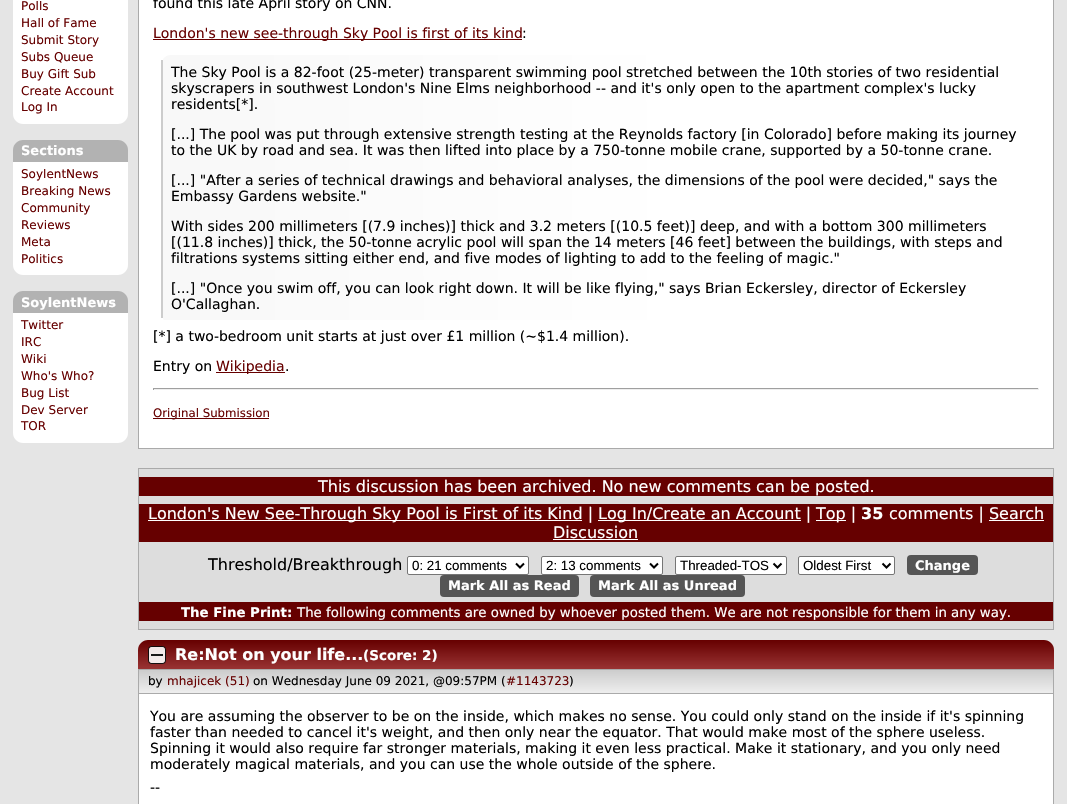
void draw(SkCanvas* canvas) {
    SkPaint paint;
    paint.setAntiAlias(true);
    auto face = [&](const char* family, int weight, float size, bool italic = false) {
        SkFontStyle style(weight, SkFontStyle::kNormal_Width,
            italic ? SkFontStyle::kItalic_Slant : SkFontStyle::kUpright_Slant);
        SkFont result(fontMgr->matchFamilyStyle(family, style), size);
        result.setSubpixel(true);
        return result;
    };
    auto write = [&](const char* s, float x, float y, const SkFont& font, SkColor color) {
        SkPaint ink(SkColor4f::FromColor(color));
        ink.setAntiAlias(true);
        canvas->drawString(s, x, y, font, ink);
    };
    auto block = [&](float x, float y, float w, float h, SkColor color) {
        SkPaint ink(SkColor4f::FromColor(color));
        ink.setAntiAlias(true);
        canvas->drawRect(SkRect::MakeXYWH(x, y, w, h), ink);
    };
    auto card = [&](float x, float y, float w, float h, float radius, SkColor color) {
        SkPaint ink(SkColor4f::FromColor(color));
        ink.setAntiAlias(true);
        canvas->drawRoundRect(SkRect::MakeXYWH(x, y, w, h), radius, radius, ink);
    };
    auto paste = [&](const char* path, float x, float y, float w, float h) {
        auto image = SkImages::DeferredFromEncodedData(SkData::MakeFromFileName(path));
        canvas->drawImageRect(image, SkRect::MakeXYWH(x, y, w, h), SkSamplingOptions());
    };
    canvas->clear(SkColorSetRGB(229, 229, 229));
    paint.setColor(SK_ColorWHITE);
    canvas->drawPath(SkPathBuilder().moveTo(13, -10).lineTo(128, -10).lineTo(128, 114).cubicTo(128, 119.5f, 123.5f, 124, 118, 124).lineTo(23, 124).cubicTo(17.5f, 124, 13, 119.5f, 13, 114).close().detach(), paint);
    auto kFont1 = face("DejaVu Sans", 400, 12);
    write("Polls", 21, 10, kFont1, SkColorSetRGB(102, 0, 0));
    write("Hall of Fame", 21, 27, kFont1, SkColorSetRGB(102, 0, 0));
    write("Submit Story", 21, 44, kFont1, SkColorSetRGB(102, 0, 0));
    write("Subs Queue", 21, 61, kFont1, SkColorSetRGB(102, 0, 0));
    write("Buy Gift Sub", 21, 78, kFont1, SkColorSetRGB(102, 0, 0));
    write("Create Account", 21, 95, kFont1, SkColorSetRGB(102, 0, 0));
    write("Log In", 21, 111, kFont1, SkColorSetRGB(102, 0, 0));
    paint.setColor(SkColorSetRGB(178, 178, 178));
    canvas->drawPath(SkPathBuilder().moveTo(23, 140).lineTo(118, 140).cubicTo(123.5f, 140, 128, 144.5f, 128, 150).lineTo(128, 162).lineTo(13, 162).lineTo(13, 150).cubicTo(13, 144.5f, 17.5f, 140, 23, 140).close().detach(), paint);
    auto kFont2 = face("DejaVu Sans", 700, 13);
    write("Sections", 21, 155, kFont2, SK_ColorWHITE);
    paint.setColor(SK_ColorWHITE);
    canvas->drawPath(SkPathBuilder().moveTo(13, 162).lineTo(128, 162).lineTo(128, 265).cubicTo(128, 270.5f, 123.5f, 275, 118, 275).lineTo(23, 275).cubicTo(17.5f, 275, 13, 270.5f, 13, 265).close().detach(), paint);
    write("SoylentNews", 21, 178, kFont1, SkColorSetRGB(102, 0, 0));
    write("Breaking News", 21, 195, kFont1, SkColorSetRGB(102, 0, 0));
    write("Community", 21, 212, kFont1, SkColorSetRGB(102, 0, 0));
    write("Reviews", 21, 229, kFont1, SkColorSetRGB(102, 0, 0));
    write("Meta", 21, 246, kFont1, SkColorSetRGB(102, 0, 0));
    write("Politics", 21, 263, kFont1, SkColorSetRGB(102, 0, 0));
    paint.setColor(SkColorSetRGB(178, 178, 178));
    canvas->drawPath(SkPathBuilder().moveTo(23, 291).lineTo(118, 291).cubicTo(123.5f, 291, 128, 295.5f, 128, 301).lineTo(128, 313).lineTo(13, 313).lineTo(13, 301).cubicTo(13, 295.5f, 17.5f, 291, 23, 291).close().detach(), paint);
    write("SoylentNews", 21, 307, kFont2, SK_ColorWHITE);
    paint.setColor(SK_ColorWHITE);
    canvas->drawPath(SkPathBuilder().moveTo(13, 313).lineTo(128, 313).lineTo(128, 433).cubicTo(128, 438.5f, 123.5f, 443, 118, 443).lineTo(23, 443).cubicTo(17.5f, 443, 13, 438.5f, 13, 433).close().detach(), paint);
    write("Twitter", 21, 329, kFont1, SkColorSetRGB(102, 0, 0));
    write("IRC", 21, 346, kFont1, SkColorSetRGB(102, 0, 0));
    write("Wiki", 21, 363, kFont1, SkColorSetRGB(102, 0, 0));
    write("Who's Who?", 21, 380, kFont1, SkColorSetRGB(102, 0, 0));
    write("Bug List", 21, 397, kFont1, SkColorSetRGB(102, 0, 0));
    write("Dev Server", 21, 414, kFont1, SkColorSetRGB(102, 0, 0));
    write("TOR", 21, 430, kFont1, SkColorSetRGB(102, 0, 0));
    block(139, 0, 914, 448, SK_ColorWHITE);
    block(1053, 0, 1, 449, SkColorSetRGB(170, 170, 170));
    block(138, 448, 916, 1, SkColorSetRGB(170, 170, 170));
    block(138, 0, 1, 449, SkColorSetRGB(170, 170, 170));
    auto kFont3 = face("DejaVu Sans", 400, 14);
    write("found this late April story on CNN.", 153, 8, kFont3, SK_ColorBLACK);
    block(153, 39, 369, 1, SkColorSetRGB(102, 0, 0));
    write("London's new see-through Sky Pool is first of its kind", 153, 38, kFont3, SkColorSetRGB(102, 0, 0));
    write(":", 522, 38, kFont3, SK_ColorBLACK);
    canvas->save();
    canvas->clipPath(SkPathBuilder().moveTo(171, 55).lineTo(1031, 55).lineTo(1031, 320).lineTo(166, 320).cubicTo(163, 320, 161, 318, 161, 315).lineTo(161, 65).cubicTo(161, 59.5f, 165.5f, 55, 171, 55).close().detach(), true);
    {
        const SkColor colors[] = {SkColorSetRGB(248, 248, 248), SK_ColorWHITE};
        const float stops[] = {0, 0.6f};
        const SkPoint ends[] = {{163, 188}, {1031, 187}};
        paint.setShader(SkGradientShader::MakeLinear(ends, colors, stops, 2, SkTileMode::kClamp));
        paint.setAlpha(255);
    }
    canvas->drawRect(SkRect::MakeXYWH(163, 55, 868, 265), paint);
    canvas->restore();
    block(161, 60, 2, 258, SkColorSetRGB(204, 204, 204));
    write("The Sky Pool is a 82-foot (25-meter) transparent swimming pool stretched between the 10th stories of two residential", 171, 77, kFont3, SK_ColorBLACK);
    write("skyscrapers in southwest London's Nine Elms neighborhood -- and it's only open to the apartment complex's lucky", 171, 93, kFont3, SK_ColorBLACK);
    write("residents[*].", 171, 109, kFont3, SK_ColorBLACK);
    write("[...] The pool was put through extensive strength testing at the Reynolds factory [in Colorado] before making its journey", 171, 139, kFont3, SK_ColorBLACK);
    write("to the UK by road and sea. It was then lifted into place by a 750-tonne mobile crane, supported by a 50-tonne crane.", 171, 155, kFont3, SK_ColorBLACK);
    write("[...] \"After a series of technical drawings and behavioral analyses, the dimensions of the pool were decided,\" says the", 171, 185, kFont3, SK_ColorBLACK);
    write("Embassy Gardens website.\"", 171, 201, kFont3, SK_ColorBLACK);
    write("With sides 200 millimeters [(7.9 inches)] thick and 3.2 meters [(10.5 feet)] deep, and with a bottom 300 millimeters", 171, 231, kFont3, SK_ColorBLACK);
    write("[(11.8 inches)] thick, the 50-tonne acrylic pool will span the 14 meters [46 feet] between the buildings, with steps and", 171, 247, kFont3, SK_ColorBLACK);
    write("filtrations systems sitting either end, and five modes of lighting to add to the feeling of magic.\"", 171, 263, kFont3, SK_ColorBLACK);
    write("[...] \"Once you swim off, you can look right down. It will be like flying,\" says Brian Eckersley, director of Eckersley", 171, 293, kFont3, SK_ColorBLACK);
    write("O'Callaghan.", 171, 309, kFont3, SK_ColorBLACK);
    write("[*] a two-bedroom unit starts at just over £1 million (~$1.4 million).", 153, 341, kFont3, SK_ColorBLACK);
    write("Entry on", 153, 371, kFont3, SK_ColorBLACK);
    block(216, 372, 69, 1, SkColorSetRGB(102, 0, 0));
    write("Wikipedia", 216, 371, kFont3, SkColorSetRGB(102, 0, 0));
    write(".", 285, 371, kFont3, SK_ColorBLACK);
    block(153, 388, 886, 1, SkColorSetRGB(159, 159, 159));
    block(1038, 388, 1, 2, SkColorSetRGB(238, 238, 238));
    block(153, 389, 886, 1, SkColorSetRGB(238, 238, 238));
    block(153, 388, 1, 2, SkColorSetRGB(159, 159, 159));
    block(153, 418, 116, 1, SkColorSetRGB(102, 0, 0));
    auto kFont4 = face("DejaVu Sans", 400, 11.75f);
    write("Original Submission", 153, 417, kFont4, SkColorSetRGB(102, 0, 0));
    paint.setShader(nullptr);
    paint.setColor(SkColorSetRGB(221, 221, 221));
    canvas->drawRect(SkRect::MakeXYWH(138.5f, 468.5f, 915, 161), paint);
    paint.setStyle(SkPaint::kStroke_Style);
    paint.setStrokeWidth(1);
    paint.setColor(SkColorSetRGB(170, 170, 170));
    canvas->drawRect(SkRect::MakeXYWH(138.5f, 468.5f, 915, 161), paint);
    block(139, 477, 914, 19, SkColorSetRGB(102, 0, 0));
    auto kFont5 = face("DejaVu Sans", 400, 16);
    write("This discussion has been archived. No new comments can be posted.", 318, 492, kFont5, SK_ColorWHITE);
    block(139, 504, 914, 38, SkColorSetRGB(102, 0, 0));
    block(148, 520, 434, 1, SK_ColorWHITE);
    write("London's New See-Through Sky Pool is First of its Kind |", 148, 519, kFont5, SK_ColorWHITE);
    block(598, 520, 203, 1, SK_ColorWHITE);
    write("Log In/Create an Account |", 598, 519, kFont5, SK_ColorWHITE);
    block(816, 520, 30, 1, SK_ColorWHITE);
    write("Top |", 816, 519, kFont5, SK_ColorWHITE);
    auto kFont6 = face("DejaVu Sans", 700, 16);
    write("35", 861, 519, kFont6, SK_ColorWHITE);
    write("comments | Search", 889, 519, kFont5, SK_ColorWHITE);
    write("Discussion", 553, 538, kFont5, SK_ColorWHITE);
    block(989, 520, 55, 1, SK_ColorWHITE);
    block(553, 539, 85, 1, SK_ColorWHITE);
    write("Threshold/Breakthrough", 208, 570, kFont5, SK_ColorBLACK);
    paint.setStyle(SkPaint::kFill_Style);
    paint.setColor(SK_ColorWHITE);
    canvas->drawRoundRect(SkRect::MakeXYWH(407.5f, 556.5f, 121, 18), 1.5f, 1.5f, paint);
    paint.setStyle(SkPaint::kStroke_Style);
    paint.setColor(SkColorSetRGB(118, 118, 118));
    canvas->drawRoundRect(SkRect::MakeXYWH(407.5f, 556.5f, 121, 18), 1.5f, 1.5f, paint);
    paint.setStrokeWidth(2);
    paint.setColor(SK_ColorBLACK);
    canvas->drawPath(SkPathBuilder().moveTo(516, 563.5f).lineTo(520, 567.5f).lineTo(524, 563.5f).detach(), paint);
    auto kFont7 = face("Liberation Sans", 400, 13.33f);
    write("0: 21 comments", 412, 570, kFont7, SK_ColorBLACK);
    paint.setStyle(SkPaint::kFill_Style);
    paint.setColor(SK_ColorWHITE);
    canvas->drawRoundRect(SkRect::MakeXYWH(541.5f, 556.5f, 121, 18), 1.5f, 1.5f, paint);
    paint.setStyle(SkPaint::kStroke_Style);
    paint.setStrokeWidth(1);
    paint.setColor(SkColorSetRGB(118, 118, 118));
    canvas->drawRoundRect(SkRect::MakeXYWH(541.5f, 556.5f, 121, 18), 1.5f, 1.5f, paint);
    paint.setStrokeWidth(2);
    paint.setColor(SK_ColorBLACK);
    canvas->drawPath(SkPathBuilder().moveTo(650, 563.5f).lineTo(654, 567.5f).lineTo(658, 563.5f).detach(), paint);
    write("2: 13 comments", 546, 570, kFont7, SK_ColorBLACK);
    paint.setStyle(SkPaint::kFill_Style);
    paint.setColor(SK_ColorWHITE);
    canvas->drawRoundRect(SkRect::MakeXYWH(675.5f, 556.5f, 111, 18), 1.5f, 1.5f, paint);
    paint.setStyle(SkPaint::kStroke_Style);
    paint.setStrokeWidth(1);
    paint.setColor(SkColorSetRGB(118, 118, 118));
    canvas->drawRoundRect(SkRect::MakeXYWH(675.5f, 556.5f, 111, 18), 1.5f, 1.5f, paint);
    paint.setStrokeWidth(2);
    paint.setColor(SK_ColorBLACK);
    canvas->drawPath(SkPathBuilder().moveTo(773.5f, 563.5f).lineTo(777.5f, 567.5f).lineTo(781.5f, 563.5f).detach(), paint);
    write("Threaded-TOS", 680, 570, kFont7, SK_ColorBLACK);
    paint.setStyle(SkPaint::kFill_Style);
    paint.setColor(SK_ColorWHITE);
    canvas->drawRoundRect(SkRect::MakeXYWH(798.5f, 556.5f, 96, 18), 1.5f, 1.5f, paint);
    paint.setStyle(SkPaint::kStroke_Style);
    paint.setStrokeWidth(1);
    paint.setColor(SkColorSetRGB(118, 118, 118));
    canvas->drawRoundRect(SkRect::MakeXYWH(798.5f, 556.5f, 96, 18), 1.5f, 1.5f, paint);
    paint.setStrokeWidth(2);
    paint.setColor(SK_ColorBLACK);
    canvas->drawPath(SkPathBuilder().moveTo(882.5f, 563.5f).lineTo(886.5f, 567.5f).lineTo(890.5f, 563.5f).detach(), paint);
    write("Oldest First", 803, 570, kFont7, SK_ColorBLACK);
    card(907, 555, 71, 20, 4, SkColorSetRGB(85, 85, 85));
    write("Change", 915, 570, kFont2, SK_ColorWHITE);
    card(440, 575, 139, 22, 4, SkColorSetRGB(85, 85, 85));
    write("Mark All as Read", 448, 590, kFont2, SK_ColorWHITE);
    card(590, 575, 155, 22, 4, SkColorSetRGB(85, 85, 85));
    write("Mark All as Unread", 598, 590, kFont2, SK_ColorWHITE);
    block(139, 602, 914, 19, SkColorSetRGB(102, 0, 0));
    auto kFont8 = face("DejaVu Sans", 700, 13.33f);
    write("The Fine Print:", 181, 617, kFont8, SK_ColorWHITE);
    auto kFont9 = face("DejaVu Sans", 400, 13.33f);
    write("The following comments are owned by whoever posted them. We are not responsible for them in any way.", 297, 617, kFont9, SK_ColorWHITE);
    paint.setStyle(SkPaint::kFill_Style);
    {
        const SkColor colors[] = {SkColorSetRGB(102, 0, 0), SkColorSetRGB(153, 51, 51)};
        const float stops[] = {0, 1};
        const SkPoint ends[] = {{596, 640}, {596, 669}};
        paint.setShader(SkGradientShader::MakeLinear(ends, colors, stops, 2, SkTileMode::kClamp));
        paint.setAlpha(255);
    }
    canvas->drawPath(SkPathBuilder().moveTo(148, 640).lineTo(1044, 640).cubicTo(1049.5f, 640, 1054, 644.5f, 1054, 650).lineTo(1054, 669).lineTo(138, 669).lineTo(138, 650).cubicTo(138, 644.5f, 142.5f, 640, 148, 640).close().detach(), paint);
    paste("pic1.png", 148, 646, 18, 18);
    write("Re:Not on your life...", 175, 660, kFont6, SK_ColorWHITE);
    auto kFont10 = face("DejaVu Sans", 700, 13.5f);
    write("(Score: 2)", 363, 660, kFont10, SK_ColorWHITE);
    {
        const SkColor colors[] = {SkColorSetRGB(204, 204, 204), SkColorSetRGB(238, 238, 238)};
        const float stops[] = {0, 1};
        const SkPoint ends[] = {{596, 670}, {596, 693}};
        paint.setShader(SkGradientShader::MakeLinear(ends, colors, stops, 2, SkTileMode::kClamp));
        paint.setAlpha(255);
    }
    canvas->drawRect(SkRect::MakeXYWH(139, 670, 914, 23), paint);
    paint.setStyle(SkPaint::kStroke_Style);
    paint.setStrokeWidth(1);
    paint.setShader(nullptr);
    paint.setColor(SkColorSetRGB(170, 170, 170));
    canvas->drawRect(SkRect::MakeXYWH(138.5f, 669.5f, 915, 24), paint);
    write("by", 148, 685, kFont1, SK_ColorBLACK);
    write("mhajicek (51)", 167, 685, kFont1, SkColorSetRGB(102, 0, 0));
    write("on Wednesday June 09 2021, @09:57PM (", 253, 685, kFont1, SK_ColorBLACK);
    write("#1143723", 506, 685, kFont1, SkColorSetRGB(102, 0, 0));
    write(")", 569, 685, kFont1, SK_ColorBLACK);
    block(139, 694, 914, 110, SK_ColorWHITE);
    block(1053, 694, 1, 110, SkColorSetRGB(170, 170, 170));
    block(138, 694, 1, 110, SkColorSetRGB(170, 170, 170));
    write("You are assuming the observer to be on the inside, which makes no sense. You could only stand on the inside if it's spinning", 150, 721, kFont3, SK_ColorBLACK);
    write("faster than needed to cancel it's weight, and then only near the equator. That would make most of the sphere useless.", 150, 737, kFont3, SK_ColorBLACK);
    write("Spinning it would also require far stronger materials, making it even less practical. Make it stationary, and you only need", 150, 753, kFont3, SK_ColorBLACK);
    write("moderately magical materials, and you can use the whole outside of the sphere.", 150, 769, kFont3, SK_ColorBLACK);
    write("--", 150, 792, kFont3, SK_ColorBLACK);
}
